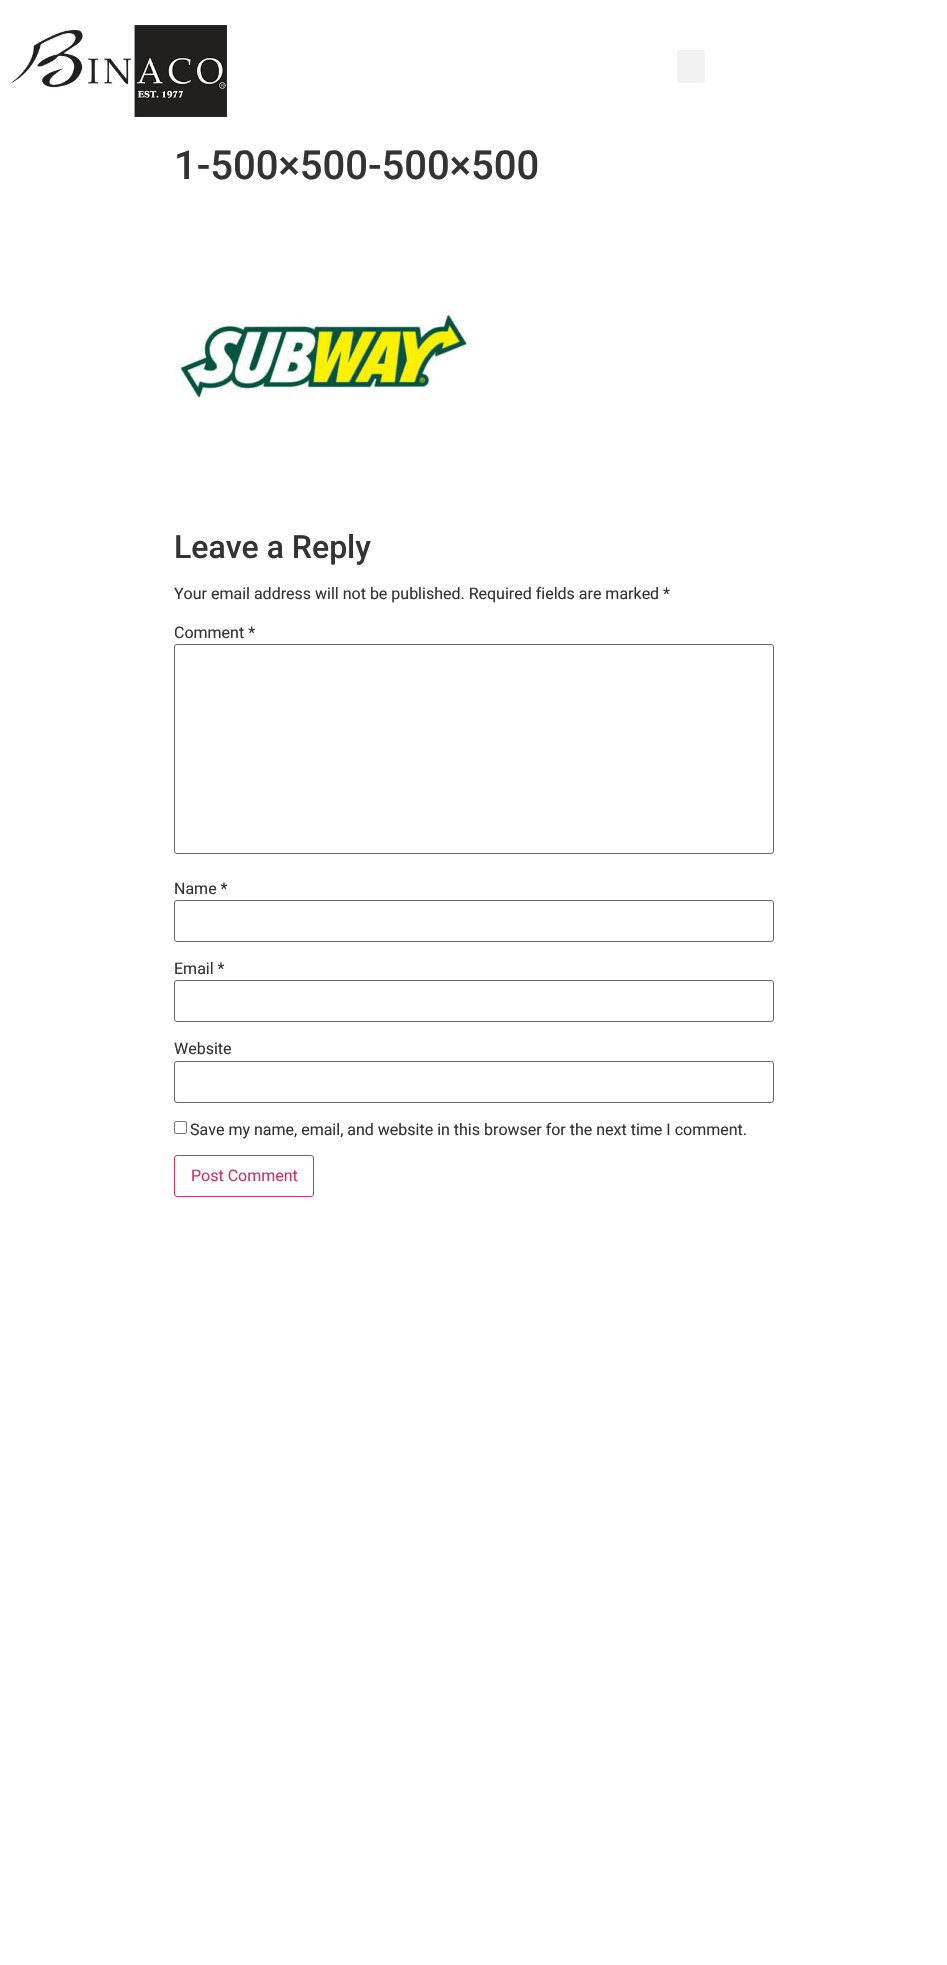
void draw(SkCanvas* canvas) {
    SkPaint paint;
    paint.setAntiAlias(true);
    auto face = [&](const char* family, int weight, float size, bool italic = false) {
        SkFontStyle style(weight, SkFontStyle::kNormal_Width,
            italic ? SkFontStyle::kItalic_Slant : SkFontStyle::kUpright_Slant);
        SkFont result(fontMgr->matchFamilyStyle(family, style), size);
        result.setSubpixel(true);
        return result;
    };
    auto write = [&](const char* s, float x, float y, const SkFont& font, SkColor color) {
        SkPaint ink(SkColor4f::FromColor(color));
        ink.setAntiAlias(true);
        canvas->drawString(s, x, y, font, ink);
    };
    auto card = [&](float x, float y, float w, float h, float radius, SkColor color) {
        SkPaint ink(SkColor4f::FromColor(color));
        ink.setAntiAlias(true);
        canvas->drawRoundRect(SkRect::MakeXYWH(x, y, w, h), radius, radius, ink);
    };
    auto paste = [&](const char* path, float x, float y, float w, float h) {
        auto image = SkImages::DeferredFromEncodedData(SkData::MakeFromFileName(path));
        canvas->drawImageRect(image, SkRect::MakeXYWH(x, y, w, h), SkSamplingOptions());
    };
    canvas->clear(SK_ColorWHITE);
    paste("pic1.png", 10, 25, 217, 92);
    card(677, 50, 28, 33, 3, SkColorSetRGB(242, 242, 242));
    auto kFont1 = face("Roboto", 500, 40);
    write("1-500×500-500×500", 174, 179, kFont1, SkColorSetRGB(51, 51, 51));
    paste("pic2.png", 174, 310, 296, 88);
    auto kFont2 = face("Roboto", 500, 32);
    write("Leave a Reply", 174, 558, kFont2, SkColorSetRGB(51, 51, 51));
    auto kFont3 = face("Roboto", 400, 16);
    write("Your email address will not be published. Required fields are marked *", 174, 599, kFont3, SkColorSetRGB(51, 51, 51));
    write("Comment *", 174, 638, kFont3, SkColorSetRGB(51, 51, 51));
    paint.setStyle(SkPaint::kStroke_Style);
    paint.setStrokeWidth(1);
    paint.setColor(SkColorSetRGB(102, 102, 102));
    canvas->drawRoundRect(SkRect::MakeXYWH(174.5f, 644.5f, 599, 209), 2.5f, 2.5f, paint);
    write("Name *", 174, 894, kFont3, SkColorSetRGB(51, 51, 51));
    canvas->drawRoundRect(SkRect::MakeXYWH(174.5f, 900.5f, 599, 41), 2.5f, 2.5f, paint);
    write("Email *", 174, 974, kFont3, SkColorSetRGB(51, 51, 51));
    canvas->drawRoundRect(SkRect::MakeXYWH(174.5f, 980.5f, 599, 41), 2.5f, 2.5f, paint);
    write("Website", 174, 1054, kFont3, SkColorSetRGB(51, 51, 51));
    canvas->drawRoundRect(SkRect::MakeXYWH(174.5f, 1061.5f, 599, 41), 2.5f, 2.5f, paint);
    paint.setColor(SkColorSetRGB(118, 118, 118));
    canvas->drawRoundRect(SkRect::MakeXYWH(174.5f, 1121.5f, 12, 12), 1.5f, 1.5f, paint);
    write("Save my name, email, and website in this browser for the next time I comment.", 190, 1135, kFont3, SkColorSetRGB(51, 51, 51));
    paint.setColor(SkColorSetRGB(204, 51, 102));
    canvas->drawRoundRect(SkRect::MakeXYWH(174.5f, 1155.5f, 139, 41), 2.5f, 2.5f, paint);
    write("Post Comment", 191, 1181, kFont3, SkColorSetRGB(204, 51, 102));
}
